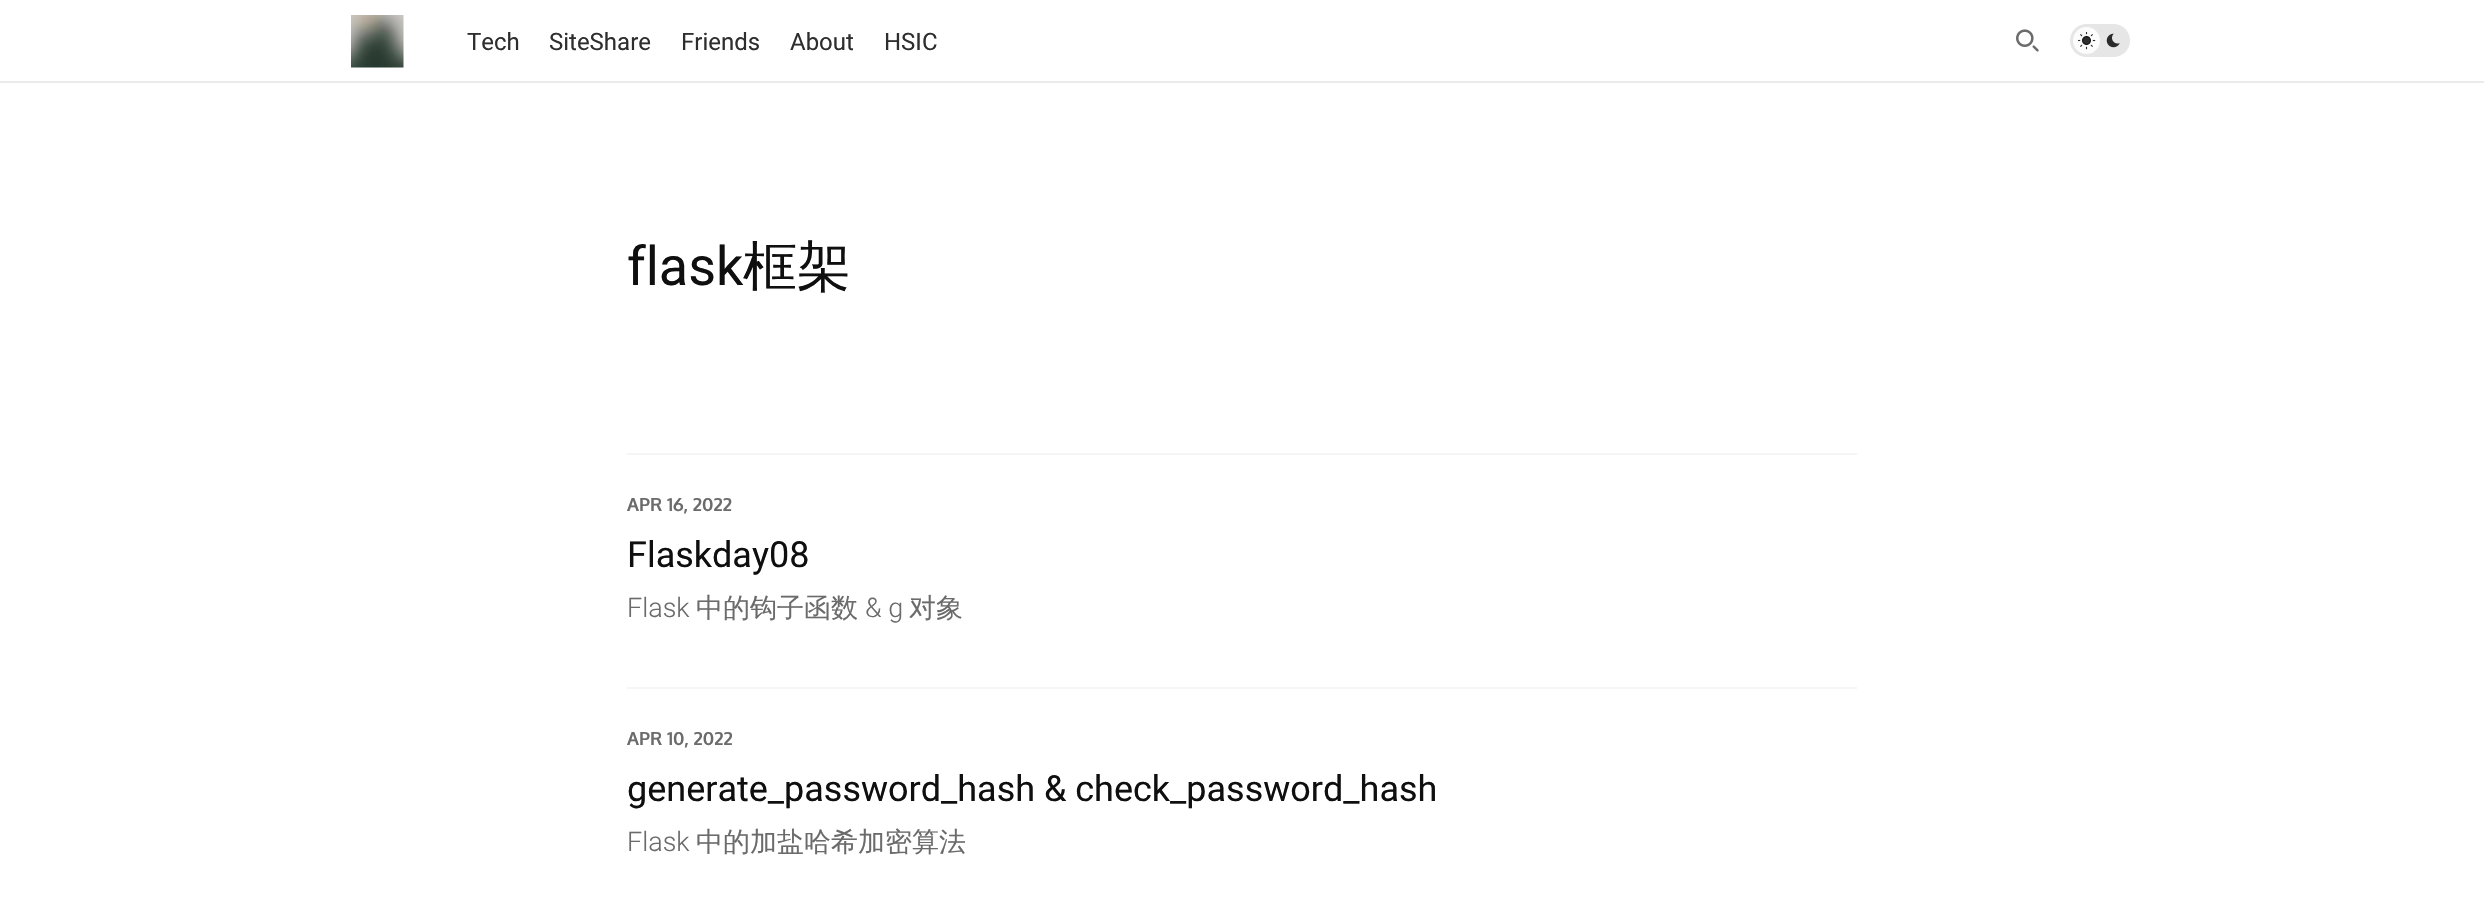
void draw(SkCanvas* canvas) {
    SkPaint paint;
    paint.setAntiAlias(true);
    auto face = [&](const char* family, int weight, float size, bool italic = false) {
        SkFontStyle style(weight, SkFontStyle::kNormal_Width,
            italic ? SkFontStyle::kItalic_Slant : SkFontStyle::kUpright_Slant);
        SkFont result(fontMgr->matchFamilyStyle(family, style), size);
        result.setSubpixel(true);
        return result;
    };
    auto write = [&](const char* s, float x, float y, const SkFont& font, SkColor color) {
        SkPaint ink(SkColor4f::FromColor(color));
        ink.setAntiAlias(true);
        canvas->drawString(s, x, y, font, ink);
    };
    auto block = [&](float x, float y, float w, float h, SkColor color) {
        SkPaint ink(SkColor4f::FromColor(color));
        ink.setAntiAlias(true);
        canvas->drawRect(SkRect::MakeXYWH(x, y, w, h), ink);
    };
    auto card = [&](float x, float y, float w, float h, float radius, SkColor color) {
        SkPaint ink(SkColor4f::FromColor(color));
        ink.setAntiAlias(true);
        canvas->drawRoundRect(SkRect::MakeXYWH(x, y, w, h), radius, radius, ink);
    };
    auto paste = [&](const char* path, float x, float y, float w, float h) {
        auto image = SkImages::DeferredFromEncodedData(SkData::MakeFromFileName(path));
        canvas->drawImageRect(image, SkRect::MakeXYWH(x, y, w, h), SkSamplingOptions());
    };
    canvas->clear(SK_ColorWHITE);
    block(0, 81, 2484, 2, SkColorSetRGB(235, 235, 235));
    paste("pic1.png", 351, 15, 53, 53);
    auto kFont1 = face("Roboto", 400, 24);
    write("Tech", 467, 50, kFont1, SkColorSetRGB(46, 46, 46));
    write("SiteShare", 549, 50, kFont1, SkColorSetRGB(46, 46, 46));
    write("Friends", 681, 50, kFont1, SkColorSetRGB(46, 46, 46));
    write("About", 790, 50, kFont1, SkColorSetRGB(46, 46, 46));
    write("HSIC", 884, 50, kFont1, SkColorSetRGB(46, 46, 46));
    paste("pic2.png", 2016, 29, 23, 23);
    card(2070, 24, 60, 33, 16.5f, SkColorSetRGB(230, 230, 230));
    paint.setColor(SkColorSetRGB(252, 252, 252));
    canvas->drawCircle(2086.5f, 40.5f, 13.5f, paint);
    paste("pic3.png", 2078, 32, 18, 18);
    paste("pic4.png", 2106, 33, 14, 15);
    auto kFont2 = face("Roboto", 400, 54);
    write("flask", 627, 285, kFont2, SkColorSetRGB(15, 15, 15));
    auto kFont3 = face("WenQuanYi Zen Hei", 500, 54);
    write("框架", 743, 285, kFont3, SkColorSetRGB(15, 15, 15));
    block(627, 453, 1230, 2, SkColorSetRGB(245, 245, 245));
    auto kFont4 = face("Oxygen", 700, 18);
    write("APR 16, 2022", 627, 511, kFont4, SkColorSetRGB(107, 107, 107));
    auto kFont5 = face("Roboto", 400, 36);
    write("Flaskday08", 627, 567, kFont5, SkColorSetRGB(15, 15, 15));
    auto kFont6 = face("Roboto", 300, 27);
    write("Flask", 627, 617, kFont6, SkColorSetRGB(107, 107, 107));
    auto kFont7 = face("WenQuanYi Zen Hei", 500, 27);
    write("中的钩子函数", 696, 617, kFont7, SkColorSetRGB(107, 107, 107));
    write("& g", 865, 617, kFont6, SkColorSetRGB(107, 107, 107));
    write("对象", 909, 617, kFont7, SkColorSetRGB(107, 107, 107));
    block(627, 687, 1230, 2, SkColorSetRGB(245, 245, 245));
    write("APR 10, 2022", 627, 745, kFont4, SkColorSetRGB(107, 107, 107));
    write("generate_password_hash & check_password_hash", 627, 801, kFont5, SkColorSetRGB(15, 15, 15));
    write("Flask", 627, 851, kFont6, SkColorSetRGB(107, 107, 107));
    write("中的加盐哈希加密算法", 696, 851, kFont7, SkColorSetRGB(107, 107, 107));
}
